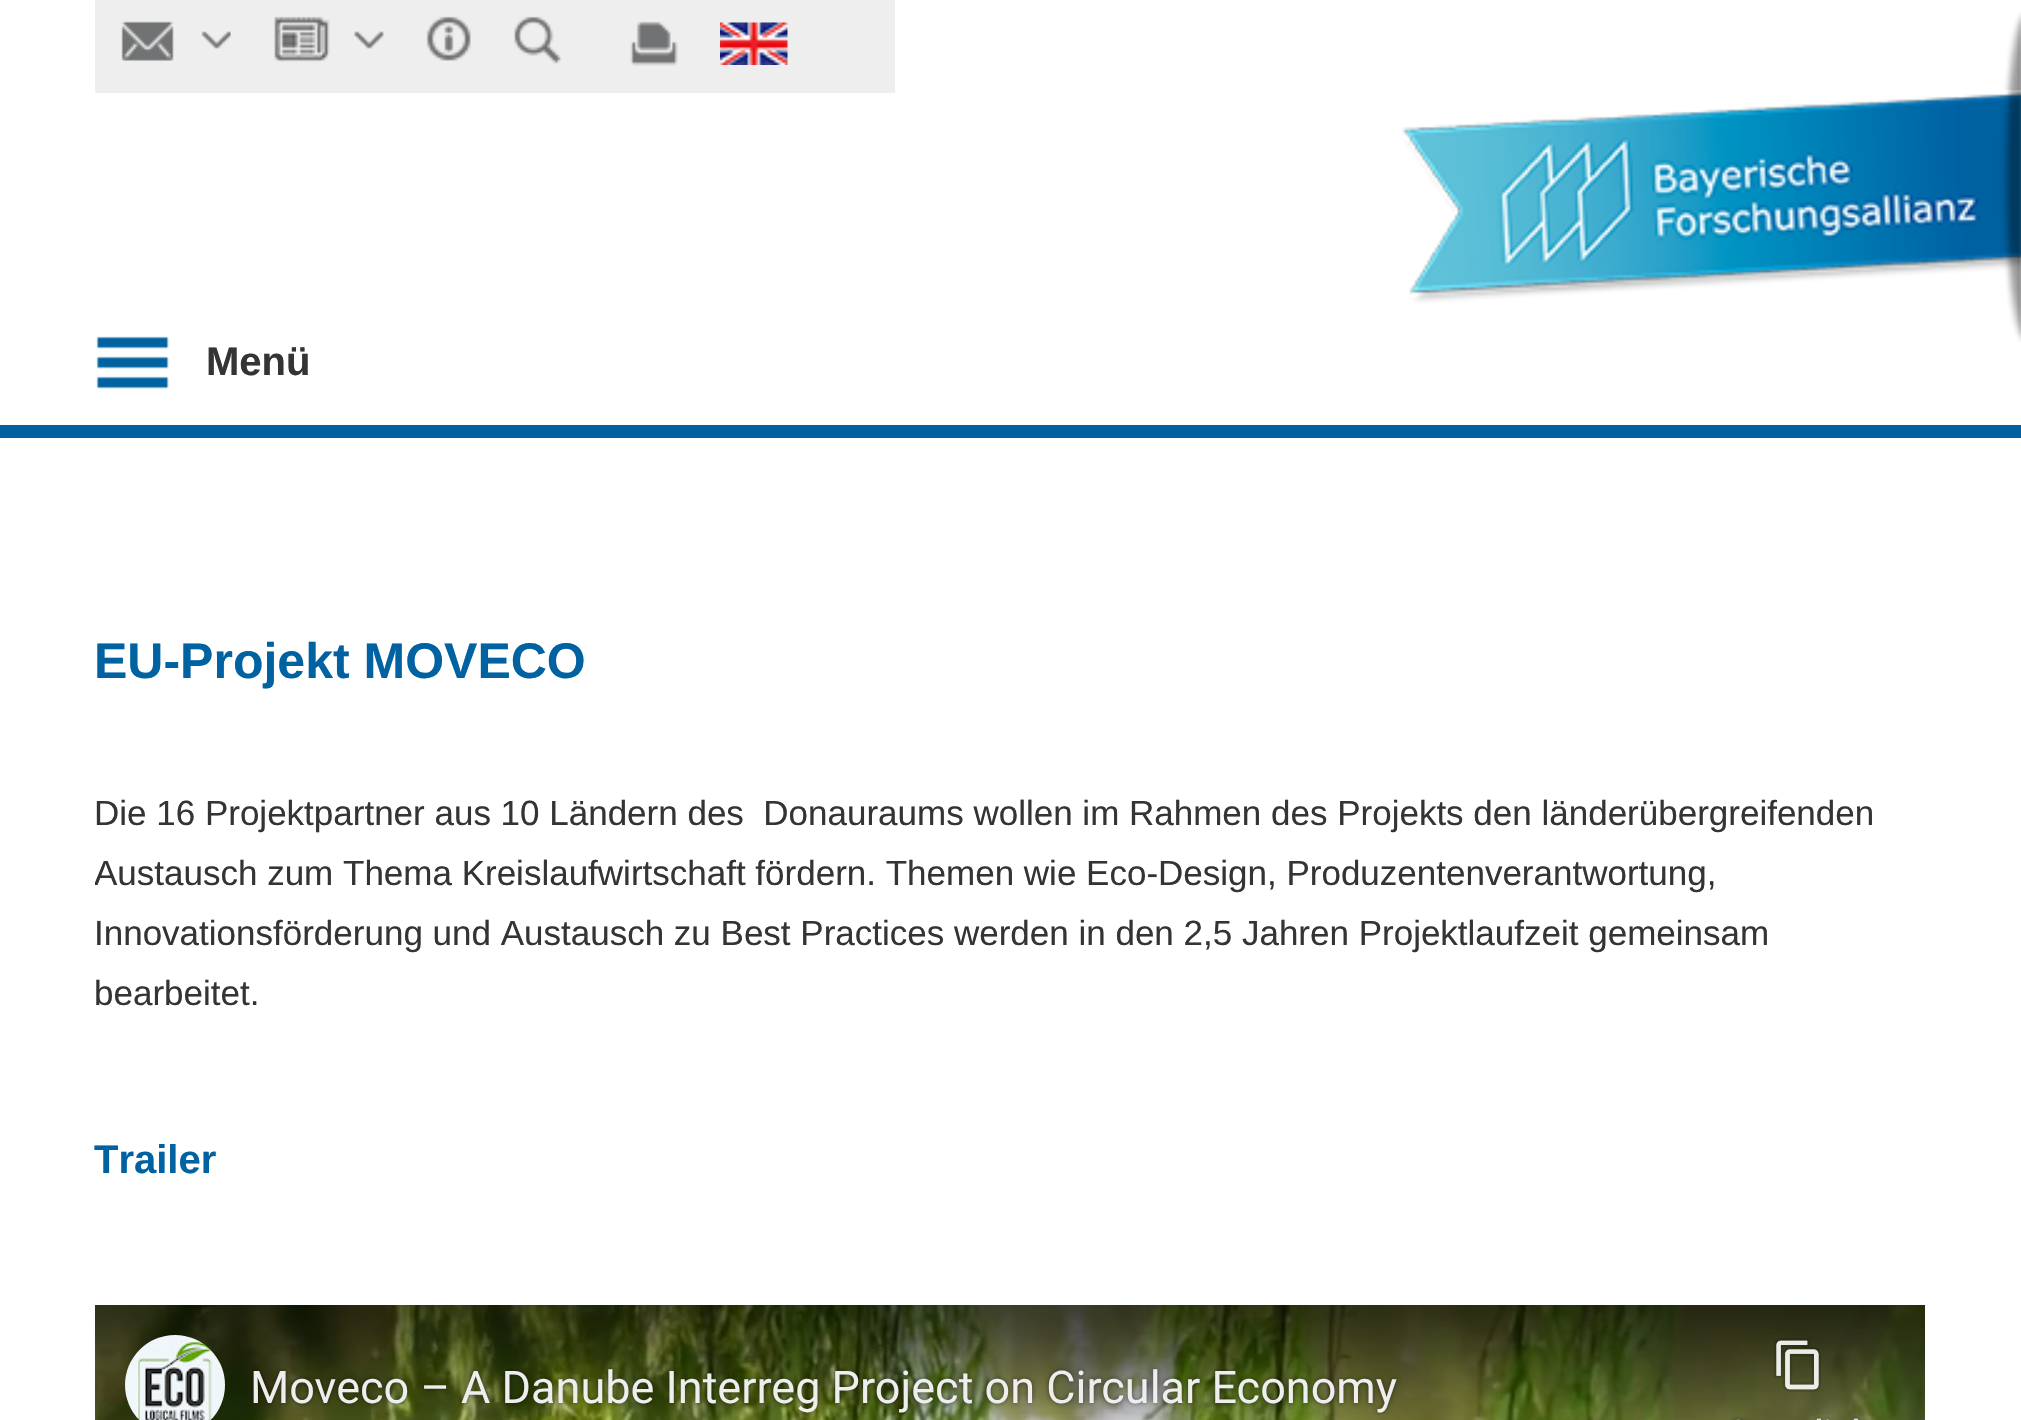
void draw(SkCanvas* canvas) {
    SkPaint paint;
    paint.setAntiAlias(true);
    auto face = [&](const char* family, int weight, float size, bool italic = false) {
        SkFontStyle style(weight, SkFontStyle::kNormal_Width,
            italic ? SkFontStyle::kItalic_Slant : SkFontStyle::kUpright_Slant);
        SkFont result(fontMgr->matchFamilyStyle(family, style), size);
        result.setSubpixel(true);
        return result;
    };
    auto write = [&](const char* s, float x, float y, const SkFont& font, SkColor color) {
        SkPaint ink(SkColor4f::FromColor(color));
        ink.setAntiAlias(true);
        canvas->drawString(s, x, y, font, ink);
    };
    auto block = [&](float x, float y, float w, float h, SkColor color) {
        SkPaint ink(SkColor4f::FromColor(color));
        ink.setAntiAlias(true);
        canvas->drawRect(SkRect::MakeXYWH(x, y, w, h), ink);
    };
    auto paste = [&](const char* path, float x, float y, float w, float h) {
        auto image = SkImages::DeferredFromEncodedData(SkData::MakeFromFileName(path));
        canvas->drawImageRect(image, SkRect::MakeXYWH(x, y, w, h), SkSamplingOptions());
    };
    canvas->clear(SK_ColorWHITE);
    block(0, 425, 2021, 13, SkColorSetRGB(0, 98, 161));
    paste("pic1.png", 1402, 12, 619, 330);
    block(95, 0, 800, 93, SkColorSetRGB(238, 238, 238));
    paste("pic2.png", 121, 21, 53, 40);
    paste("pic3.png", 201, 31, 30, 18);
    paste("pic4.png", 274, 16, 56, 47);
    paste("pic5.png", 354, 31, 30, 18);
    paste("pic6.png", 426, 16, 45, 45);
    paste("pic7.png", 514, 16, 47, 48);
    paste("pic8.png", 630, 21, 48, 45);
    paste("pic9.png", 720, 22, 68, 43);
    paste("pic10.png", 96, 336, 73, 53);
    auto kFont1 = face("Liberation Sans", 700, 40);
    write("Menü", 206, 375, kFont1, SkColorSetRGB(52, 52, 52));
    auto kFont2 = face("Liberation Sans", 700, 50);
    write("EU-Projekt MOVECO", 94, 678, kFont2, SkColorSetRGB(0, 98, 161));
    auto kFont3 = face("Liberation Sans", 400, 35);
    write("Die 16 Projektpartner aus 10 Ländern des  Donauraums wollen im Rahmen des Projekts den länderübergreifenden", 94, 825, kFont3, SkColorSetRGB(52, 52, 52));
    canvas->save();
    canvas->clipRect(SkRect::MakeXYWH(95, 783, 1830, 300));
    write("Austausch zum Thema Kreislaufwirtschaft fördern. Themen wie Eco-Design, Produzentenverantwortung,", 94, 885, kFont3, SkColorSetRGB(52, 52, 52));
    canvas->restore();
    write("Innovationsförderung und Austausch zu Best Practices werden in den 2,5 Jahren Projektlaufzeit gemeinsam", 94, 945, kFont3, SkColorSetRGB(52, 52, 52));
    write("bearbeitet.", 94, 1005, kFont3, SkColorSetRGB(52, 52, 52));
    write("Trailer", 94, 1173, kFont1, SkColorSetRGB(0, 98, 161));
    paste("pic11.png", 95, 1305, 1830, 115);
}
